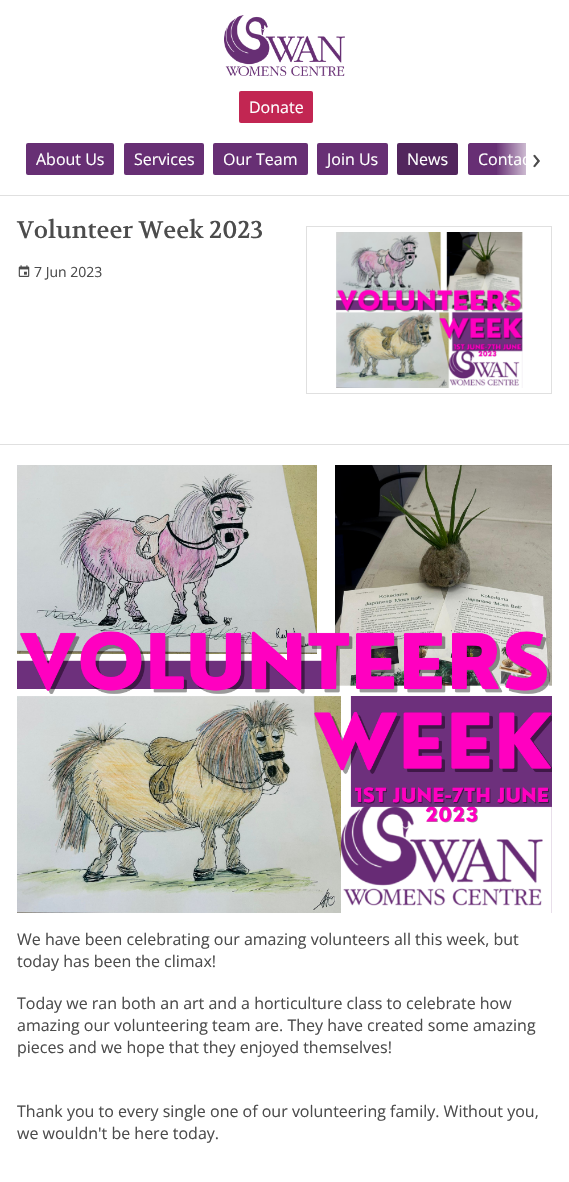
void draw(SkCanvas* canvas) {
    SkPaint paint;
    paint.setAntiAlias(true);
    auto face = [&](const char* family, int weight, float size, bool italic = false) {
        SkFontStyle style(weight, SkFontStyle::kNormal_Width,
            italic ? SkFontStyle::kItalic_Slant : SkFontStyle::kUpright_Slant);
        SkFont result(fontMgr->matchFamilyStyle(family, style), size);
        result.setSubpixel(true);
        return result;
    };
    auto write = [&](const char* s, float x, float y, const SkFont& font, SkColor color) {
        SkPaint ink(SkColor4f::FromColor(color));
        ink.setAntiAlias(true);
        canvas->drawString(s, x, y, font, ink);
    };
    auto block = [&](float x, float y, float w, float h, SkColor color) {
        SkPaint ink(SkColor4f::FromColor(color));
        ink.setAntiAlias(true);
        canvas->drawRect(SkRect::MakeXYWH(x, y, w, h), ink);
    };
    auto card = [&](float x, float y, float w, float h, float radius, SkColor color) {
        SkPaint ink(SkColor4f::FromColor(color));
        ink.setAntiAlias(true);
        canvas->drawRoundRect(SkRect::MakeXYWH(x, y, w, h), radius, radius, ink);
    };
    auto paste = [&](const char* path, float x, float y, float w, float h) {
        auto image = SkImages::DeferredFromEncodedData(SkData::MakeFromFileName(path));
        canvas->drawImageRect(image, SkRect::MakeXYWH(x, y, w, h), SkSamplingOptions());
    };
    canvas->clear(SK_ColorWHITE);
    paste("pic1.png", 224, 15, 121, 61);
    card(239, 91, 74, 32, 2, SkColorSetRGB(194, 38, 82));
    auto kFont1 = face("Open Sans", 400, 16);
    write("Donate", 249, 113, kFont1, SK_ColorWHITE);
    card(26, 143, 88, 32, 2, SkColorSetRGB(103, 47, 116));
    write("About Us", 36, 165, kFont1, SK_ColorWHITE);
    card(124, 143, 80, 32, 2, SkColorSetRGB(103, 47, 116));
    write("Services", 134, 165, kFont1, SK_ColorWHITE);
    card(213, 143, 95, 32, 2, SkColorSetRGB(103, 47, 116));
    write("Our Team", 223, 165, kFont1, SK_ColorWHITE);
    card(317, 143, 71, 32, 2, SkColorSetRGB(103, 47, 116));
    write("Join Us", 327, 165, kFont1, SK_ColorWHITE);
    card(397, 143, 61, 32, 2, SkColorSetRGB(82, 38, 93));
    write("News", 407, 165, kFont1, SK_ColorWHITE);
    paint.setColor(SkColorSetRGB(103, 47, 116));
    canvas->drawPath(SkPathBuilder().moveTo(470, 143).lineTo(526, 143).lineTo(526, 175).lineTo(470, 175).cubicTo(469, 175, 468, 174, 468, 173).lineTo(468, 145).cubicTo(468, 144, 469, 143, 470, 143).close().detach(), paint);
    canvas->save();
    canvas->clipRect(SkRect::MakeXYWH(26, 128, 500, 62));
    write("Contac", 478, 165, kFont1, SK_ColorWHITE);
    canvas->restore();
    {
        const SkColor colors[] = {SK_ColorWHITE, SkColorSetARGB(0, 255, 255, 255)};
        const float stops[] = {0, 1};
        const SkPoint ends[] = {{541, 158}, {496, 158}};
        paint.setShader(SkGradientShader::MakeLinear(ends, colors, stops, 2, SkTileMode::kClamp));
        paint.setAlpha(255);
    }
    canvas->drawRect(SkRect::MakeXYWH(497, 143, 29, 32), paint);
    auto kFont2 = face("Open Sans", 400, 30);
    write("›", 532, 169, kFont2, SkColorSetRGB(76, 76, 76));
    block(0, 195, 569, 1, SkColorSetRGB(224, 224, 224));
    block(0, 444, 569, 1, SkColorSetRGB(224, 224, 224));
    auto kFont3 = face("Volkhov", 400, 24);
    write("Volunteer Week 2023", 17, 238, kFont3, SkColorSetRGB(76, 76, 76));
    paste("pic2.png", 18, 265, 12, 12);
    auto kFont4 = face("Open Sans", 400, 14);
    write("7 Jun 2023", 34, 277, kFont4, SkColorSetRGB(76, 76, 76));
    paint.setStyle(SkPaint::kStroke_Style);
    paint.setStrokeWidth(1);
    paint.setShader(nullptr);
    paint.setColor(SkColorSetRGB(224, 224, 224));
    canvas->drawRect(SkRect::MakeXYWH(306.5f, 226.5f, 245, 167), paint);
    paste("pic3.png", 336, 232, 187, 156);
    paste("pic4.png", 17, 465, 535, 448);
    write("We have been celebrating our amazing volunteers all this week, but", 17, 945, kFont1, SkColorSetRGB(76, 76, 76));
    write("today has been the climax!", 17, 967, kFont1, SkColorSetRGB(76, 76, 76));
    write("Today we ran both an art and a horticulture class to celebrate how", 17, 1009, kFont1, SkColorSetRGB(76, 76, 76));
    write("amazing our volunteering team are. They have created some amazing", 17, 1031, kFont1, SkColorSetRGB(76, 76, 76));
    write("pieces and we hope that they enjoyed themselves!", 17, 1053, kFont1, SkColorSetRGB(76, 76, 76));
    write("Thank you to every single one of our volunteering family. Without you,", 17, 1117, kFont1, SkColorSetRGB(76, 76, 76));
    write("we wouldn't be here today.", 17, 1139, kFont1, SkColorSetRGB(76, 76, 76));
}
